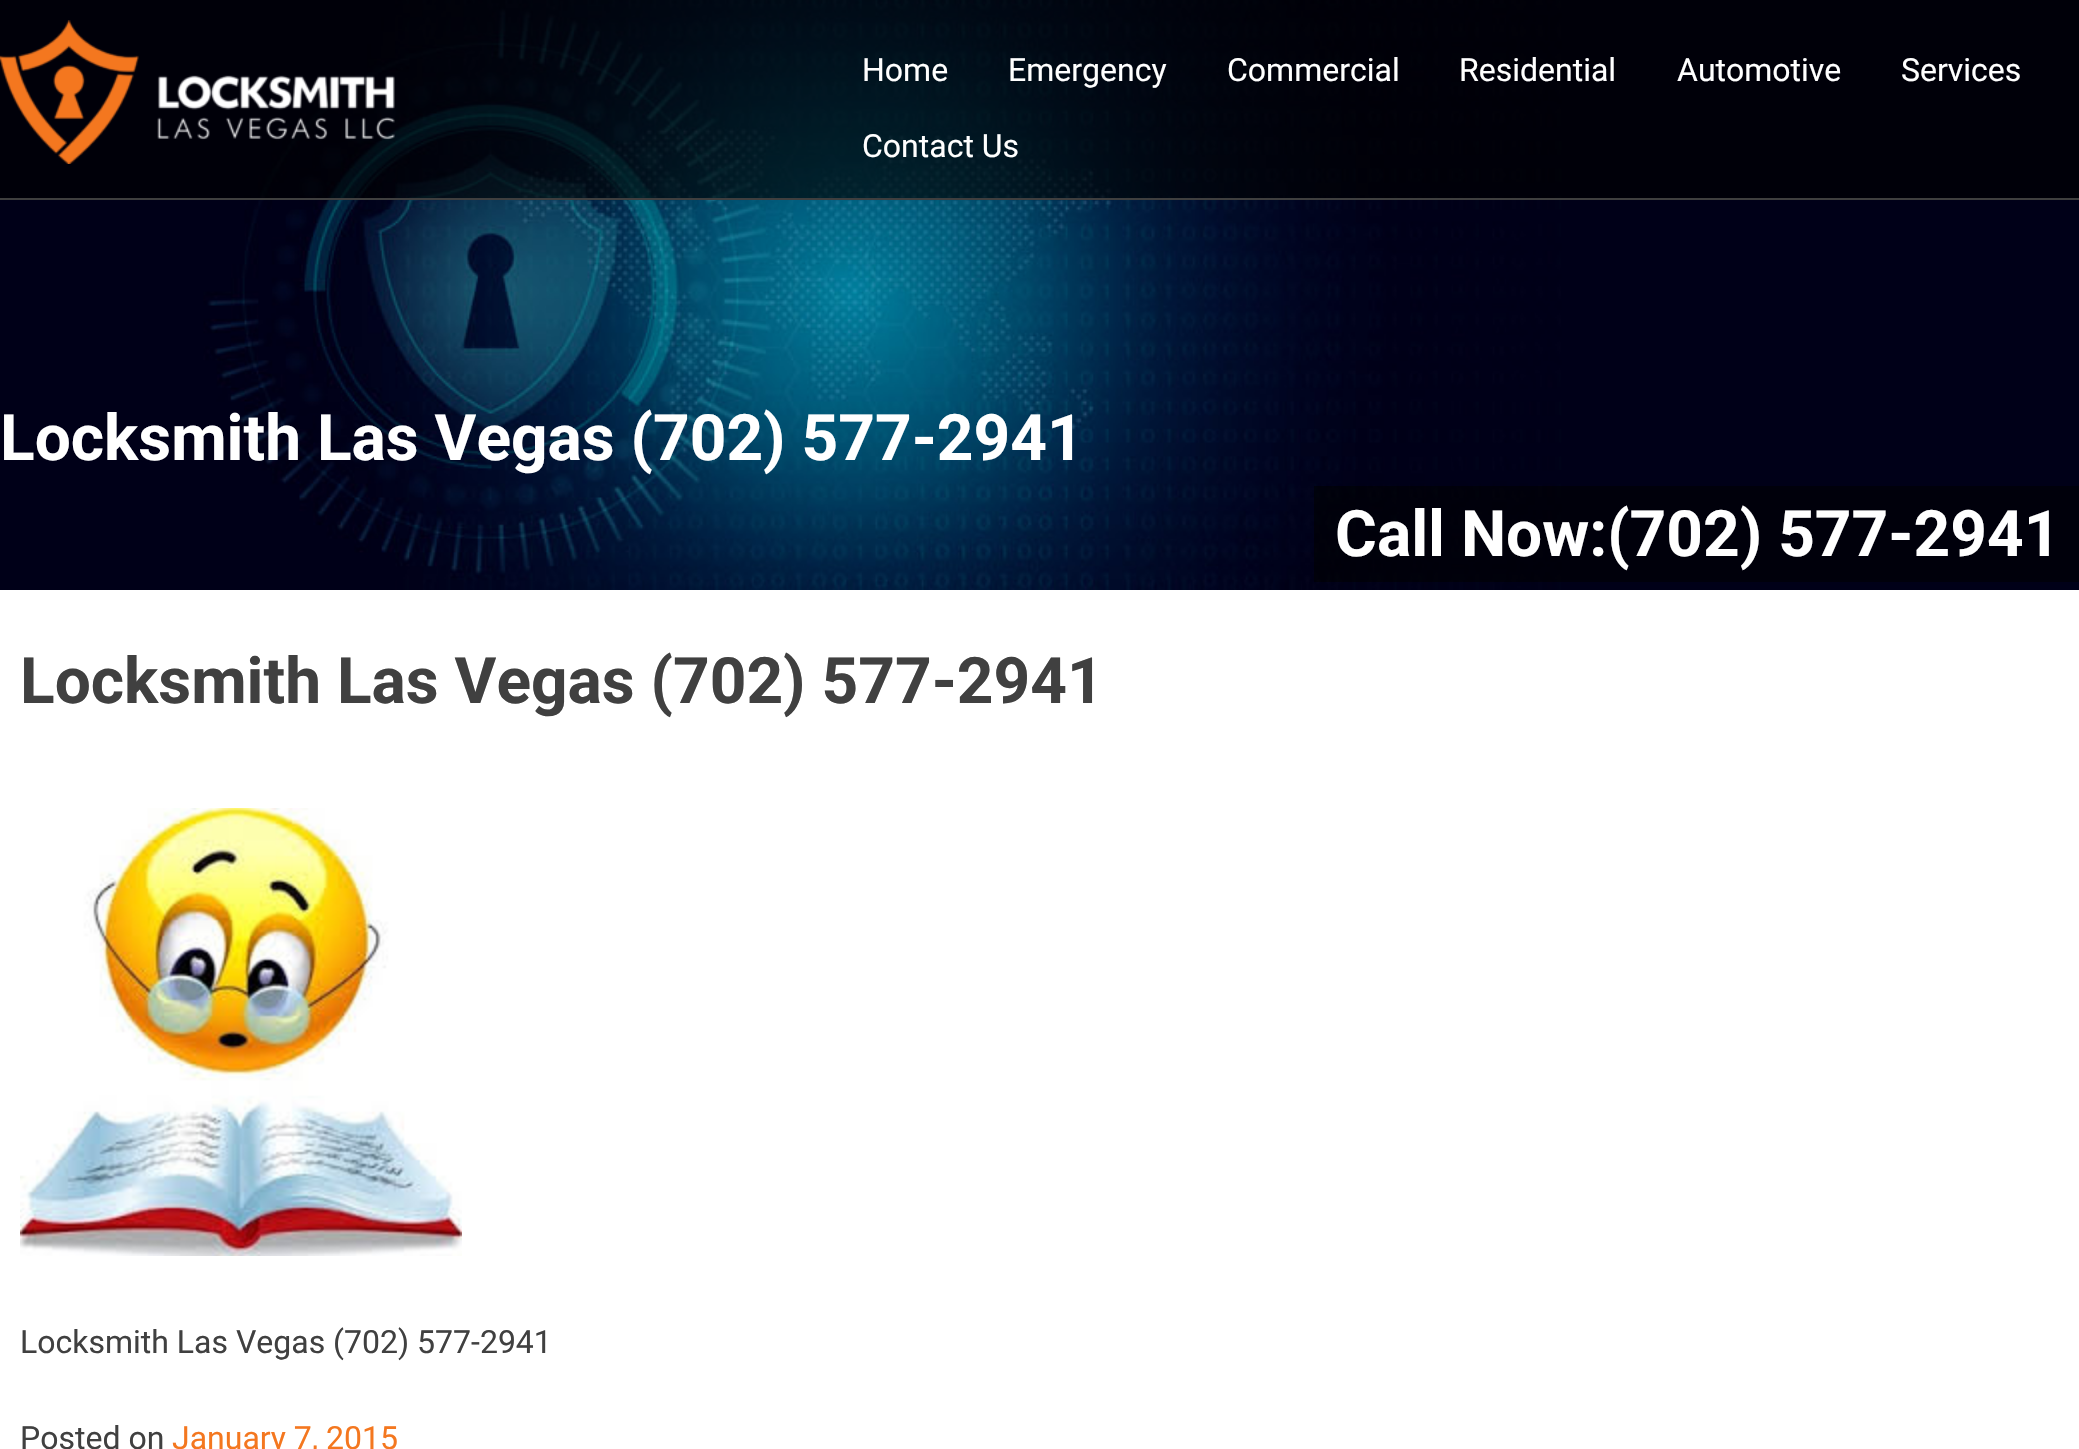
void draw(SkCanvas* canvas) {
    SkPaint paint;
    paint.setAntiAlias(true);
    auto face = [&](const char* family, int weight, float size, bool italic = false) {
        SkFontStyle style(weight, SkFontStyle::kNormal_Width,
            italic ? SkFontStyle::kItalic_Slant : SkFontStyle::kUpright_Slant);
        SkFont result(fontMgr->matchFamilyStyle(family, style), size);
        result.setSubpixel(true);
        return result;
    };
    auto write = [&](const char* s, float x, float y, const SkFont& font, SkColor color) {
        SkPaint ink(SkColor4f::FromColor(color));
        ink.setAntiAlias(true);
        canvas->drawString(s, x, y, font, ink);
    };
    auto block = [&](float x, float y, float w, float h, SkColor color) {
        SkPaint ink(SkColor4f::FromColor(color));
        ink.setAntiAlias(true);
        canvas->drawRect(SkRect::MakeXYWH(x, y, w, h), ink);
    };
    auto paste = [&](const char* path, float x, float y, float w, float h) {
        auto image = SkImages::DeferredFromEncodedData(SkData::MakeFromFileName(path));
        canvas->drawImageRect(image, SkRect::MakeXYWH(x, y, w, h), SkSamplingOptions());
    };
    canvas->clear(SK_ColorWHITE);
    paste("pic2.png", 0, 0, 2079, 590);
    block(0, 0, 2079, 198, SkColorSetARGB(166, 0, 0, 0));
    block(0, 198, 2079, 2, SkColorSetRGB(63, 63, 63));
    paste("pic1.png", 0, 20, 395, 144);
    auto kFont1 = face("Roboto", 400, 32);
    write("Home", 862, 81, kFont1, SK_ColorWHITE);
    write("Emergency", 1008, 81, kFont1, SK_ColorWHITE);
    write("Commercial", 1227, 81, kFont1, SK_ColorWHITE);
    write("Residential", 1459, 81, kFont1, SK_ColorWHITE);
    write("Automotive", 1677, 81, kFont1, SK_ColorWHITE);
    write("Services", 1901, 81, kFont1, SK_ColorWHITE);
    write("Contact Us", 862, 157, kFont1, SK_ColorWHITE);
    auto kFont2 = face("Roboto", 700, 64);
    write("Locksmith Las Vegas (702) 577-2941", 0, 460, kFont2, SK_ColorWHITE);
    block(1314, 486, 765, 96, SkColorSetARGB(148, 0, 0, 0));
    write("Call Now:(702) 577-2941", 1335, 556, kFont2, SK_ColorWHITE);
    write("Locksmith Las Vegas (702) 577-2941", 20, 703, kFont2, SkColorSetRGB(64, 64, 64));
    paste("pic3.png", 20, 808, 442, 448);
    write("Locksmith Las Vegas (702) 577-2941", 20, 1353, kFont1, SkColorSetRGB(64, 64, 64));
    write("Posted on", 20, 1449, kFont1, SkColorSetRGB(64, 64, 64));
    write("January 7, 2015", 172, 1449, kFont1, SkColorSetRGB(244, 119, 31));
}
